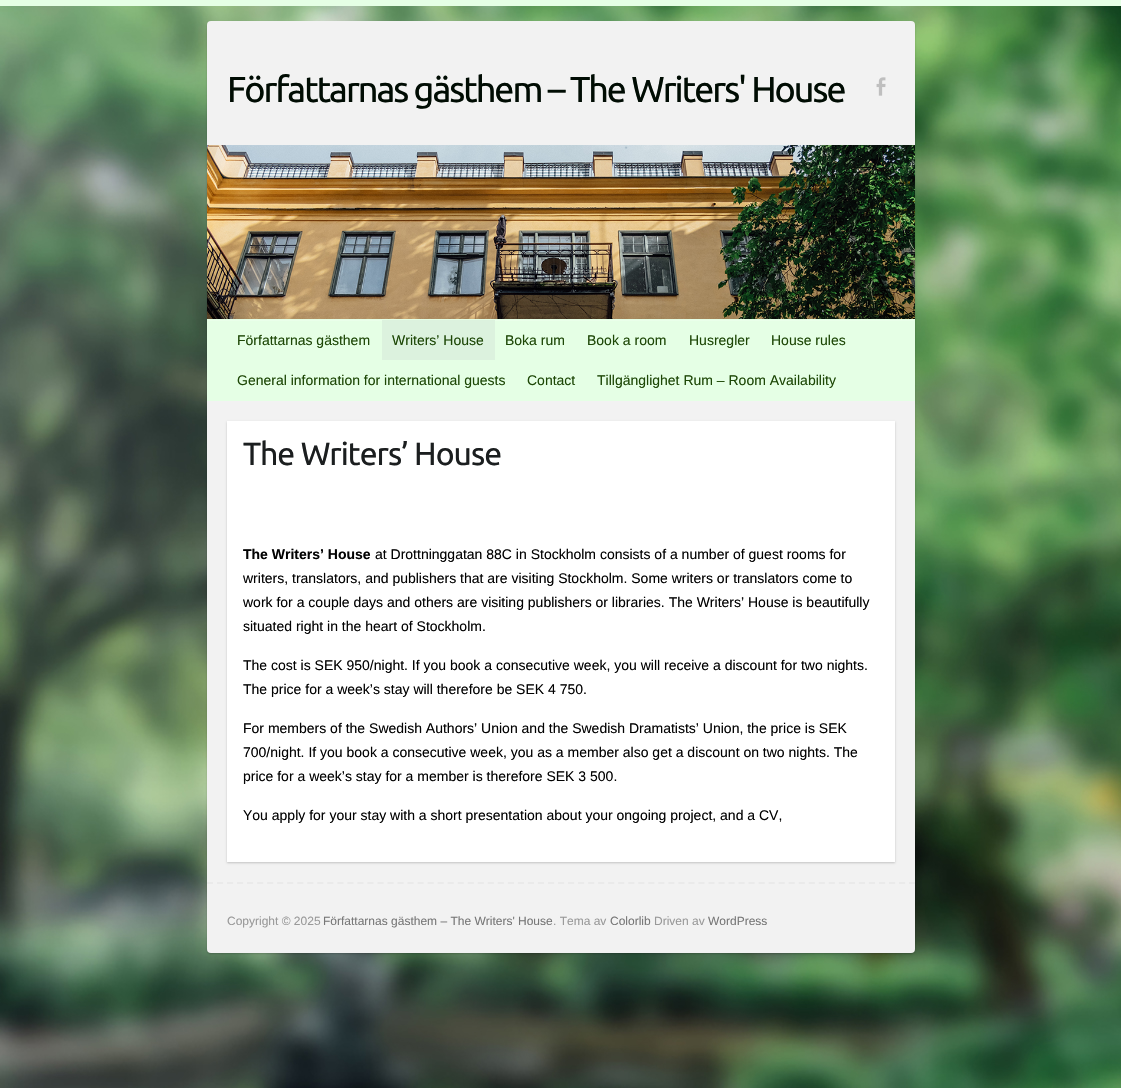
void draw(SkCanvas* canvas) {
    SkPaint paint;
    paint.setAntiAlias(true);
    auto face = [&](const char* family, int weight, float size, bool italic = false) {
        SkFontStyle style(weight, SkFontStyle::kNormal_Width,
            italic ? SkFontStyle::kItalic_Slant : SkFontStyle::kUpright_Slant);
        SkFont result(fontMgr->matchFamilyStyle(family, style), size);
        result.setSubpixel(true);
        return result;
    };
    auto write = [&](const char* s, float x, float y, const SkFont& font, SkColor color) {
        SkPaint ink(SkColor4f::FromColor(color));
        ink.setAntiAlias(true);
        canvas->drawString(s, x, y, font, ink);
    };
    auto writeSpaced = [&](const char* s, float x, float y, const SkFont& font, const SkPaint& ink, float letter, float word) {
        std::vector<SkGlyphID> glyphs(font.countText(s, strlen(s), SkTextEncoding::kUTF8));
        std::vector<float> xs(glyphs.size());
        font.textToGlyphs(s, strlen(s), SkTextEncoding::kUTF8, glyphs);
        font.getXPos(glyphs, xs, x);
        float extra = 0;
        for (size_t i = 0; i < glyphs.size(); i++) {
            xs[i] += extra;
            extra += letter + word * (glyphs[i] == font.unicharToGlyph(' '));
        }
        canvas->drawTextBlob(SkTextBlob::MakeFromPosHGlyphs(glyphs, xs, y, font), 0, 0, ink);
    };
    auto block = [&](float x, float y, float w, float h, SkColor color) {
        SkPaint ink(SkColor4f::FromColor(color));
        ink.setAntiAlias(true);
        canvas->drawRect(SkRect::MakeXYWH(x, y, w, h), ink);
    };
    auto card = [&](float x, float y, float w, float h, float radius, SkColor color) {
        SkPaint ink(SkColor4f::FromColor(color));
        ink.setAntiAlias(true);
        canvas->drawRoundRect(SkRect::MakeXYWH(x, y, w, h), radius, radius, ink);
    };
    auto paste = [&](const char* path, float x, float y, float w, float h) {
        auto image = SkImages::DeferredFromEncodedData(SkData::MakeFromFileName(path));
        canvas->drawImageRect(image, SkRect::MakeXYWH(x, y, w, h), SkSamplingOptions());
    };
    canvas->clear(SK_ColorWHITE);
    paste("pic1.png", 0, 6, 1121, 1082);
    block(0, 0, 1121, 6, SkColorSetRGB(229, 255, 229));
    paint.setColor(SkColorSetARGB(51, 0, 0, 0));
    paint.setMaskFilter(SkMaskFilter::MakeBlur(kNormal_SkBlurStyle, 1));
    canvas->drawRoundRect(SkRect::MakeXYWH(207, 22, 708, 932), 4, 4, paint);
    paint.setMaskFilter(nullptr);
    card(207, 21, 708, 932, 4, SkColorSetRGB(242, 242, 242));
    auto kFont1 = face("Ubuntu", 400, 36);
    paint.setColor(SkColorSetRGB(0, 12, 3));
    writeSpaced("Författarnas gästhem – The Writers' House", 227, 102, kFont1, paint, -2, 0);
    paste("pic2.png", 876, 77, 10, 19);
    paste("pic3.png", 207, 145, 708, 174);
    block(207, 319, 708, 82, SkColorSetRGB(229, 255, 229));
    block(208, 320, 706, 1, SkColorSetRGB(234, 255, 234));
    auto kFont2 = face("Liberation Sans", 400, 14);
    write("Författarnas gästhem", 237, 345, kFont2, SkColorSetRGB(29, 71, 6));
    block(382, 320, 113, 40, SkColorSetRGB(220, 242, 222));
    write("Writers’ House", 392, 345, kFont2, SkColorSetRGB(29, 71, 6));
    write("Boka rum", 505, 345, kFont2, SkColorSetRGB(29, 71, 6));
    write("Book a room", 587, 345, kFont2, SkColorSetRGB(29, 71, 6));
    write("Husregler", 689, 345, kFont2, SkColorSetRGB(29, 71, 6));
    write("House rules", 771, 345, kFont2, SkColorSetRGB(29, 71, 6));
    write("General information for international guests", 237, 385, kFont2, SkColorSetRGB(29, 71, 6));
    write("Contact", 527, 385, kFont2, SkColorSetRGB(29, 71, 6));
    write("Tillgänglighet Rum – Room Availability", 597, 385, kFont2, SkColorSetRGB(29, 71, 6));
    paint.setColor(SkColorSetARGB(51, 0, 0, 0));
    paint.setMaskFilter(SkMaskFilter::MakeBlur(kNormal_SkBlurStyle, 1));
    canvas->drawRect(SkRect::MakeXYWH(227, 422, 668, 441), paint);
    paint.setMaskFilter(nullptr);
    block(227, 421, 668, 441, SK_ColorWHITE);
    auto kFont3 = face("Ubuntu", 400, 32);
    paint.setColor(SkColorSetRGB(27, 30, 31));
    writeSpaced("The Writers’ House", 243, 465, kFont3, paint, -1, 0);
    auto kFont4 = face("Liberation Sans", 700, 14);
    write("The Writers’ House", 243, 559, kFont4, SkColorSetRGB(2, 2, 2));
    write("at Drottninggatan 88C in Stockholm consists of a number of guest rooms for", 375, 559, kFont2, SkColorSetRGB(2, 2, 2));
    write("writers, translators, and publishers that are visiting Stockholm. Some writers or translators come to", 243, 583, kFont2, SkColorSetRGB(2, 2, 2));
    write("work for a couple days and others are visiting publishers or libraries. The Writers’ House is beautifully", 243, 607, kFont2, SkColorSetRGB(2, 2, 2));
    write("situated right in the heart of Stockholm.", 243, 631, kFont2, SkColorSetRGB(2, 2, 2));
    write("The cost is SEK 950/night. If you book a consecutive week, you will receive a discount for two nights.", 243, 670, kFont2, SkColorSetRGB(2, 2, 2));
    write("The price for a week’s stay will therefore be SEK 4 750.", 243, 694, kFont2, SkColorSetRGB(2, 2, 2));
    write("For members of the Swedish Authors’ Union and the Swedish Dramatists’ Union, the price is SEK", 243, 733, kFont2, SkColorSetRGB(2, 2, 2));
    write("700/night. If you book a consecutive week, you as a member also get a discount on two nights. The", 243, 757, kFont2, SkColorSetRGB(2, 2, 2));
    write("price for a week’s stay for a member is therefore SEK 3 500.", 243, 781, kFont2, SkColorSetRGB(2, 2, 2));
    write("You apply for your stay with a short presentation about your ongoing project, and a CV,", 243, 820, kFont2, SkColorSetRGB(2, 2, 2));
    paint.setStyle(SkPaint::kStroke_Style);
    paint.setStrokeWidth(2);
    paint.setColor(SkColorSetRGB(234, 234, 234));
    paint.setPathEffect(SkDashPathEffect::Make({{6, 4.03f}}, 0));
    canvas->drawPath(SkPathBuilder().moveTo(207, 883).lineTo(915, 883).detach(), paint);
    paint.setPathEffect(nullptr);
    auto kFont5 = face("Liberation Sans", 400, 12);
    write("Copyright © 2025", 227, 925, kFont5, SkColorSetRGB(153, 153, 153));
    write("Författarnas gästhem – The Writers' House", 323, 925, kFont5, SkColorSetRGB(119, 119, 119));
    write(". Tema av", 553, 925, kFont5, SkColorSetRGB(153, 153, 153));
    write("Colorlib", 610, 925, kFont5, SkColorSetRGB(119, 119, 119));
    write("Driven av", 654, 925, kFont5, SkColorSetRGB(153, 153, 153));
    write("WordPress", 708, 925, kFont5, SkColorSetRGB(119, 119, 119));
}
